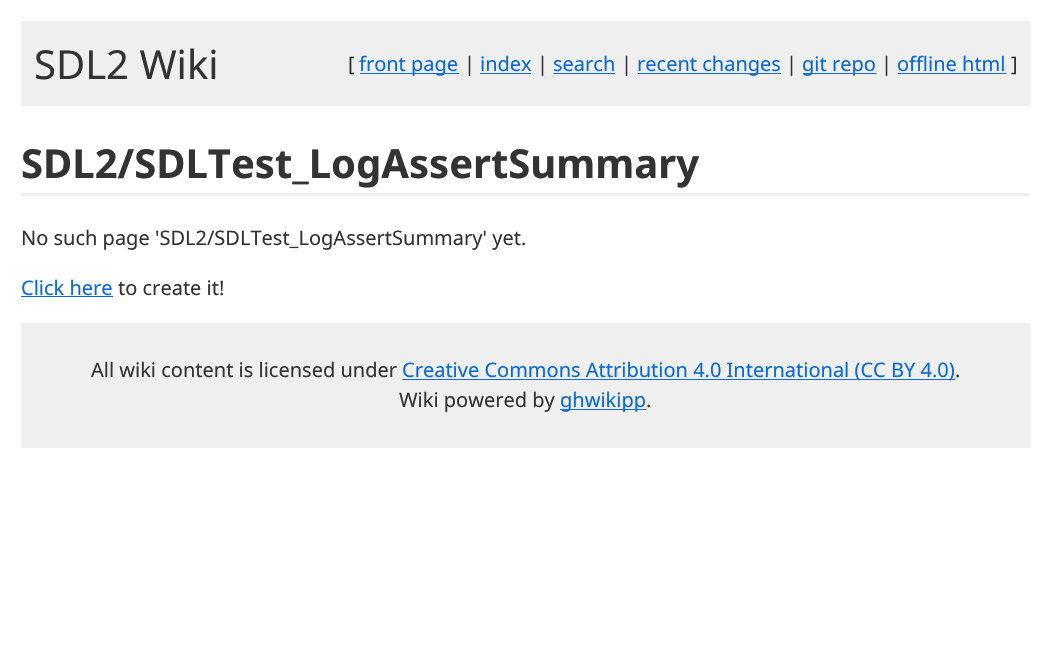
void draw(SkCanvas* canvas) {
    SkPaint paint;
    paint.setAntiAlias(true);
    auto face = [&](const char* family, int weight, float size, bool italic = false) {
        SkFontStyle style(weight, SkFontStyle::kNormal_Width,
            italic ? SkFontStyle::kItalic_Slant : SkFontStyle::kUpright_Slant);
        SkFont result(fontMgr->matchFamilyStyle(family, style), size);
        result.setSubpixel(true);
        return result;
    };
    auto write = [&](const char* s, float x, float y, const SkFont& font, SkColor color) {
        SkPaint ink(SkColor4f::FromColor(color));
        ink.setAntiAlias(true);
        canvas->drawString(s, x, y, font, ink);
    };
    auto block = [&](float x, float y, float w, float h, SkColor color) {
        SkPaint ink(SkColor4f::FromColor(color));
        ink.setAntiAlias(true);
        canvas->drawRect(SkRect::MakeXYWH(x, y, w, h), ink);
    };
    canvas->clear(SK_ColorWHITE);
    block(21, 21, 1009, 85, SkColorSetRGB(239, 239, 239));
    auto kFont1 = face("Noto Sans", 400, 40);
    write("SDL2 Wiki", 34, 79, kFont1, SkColorSetRGB(51, 51, 51));
    auto kFont2 = face("Noto Sans", 400, 20);
    write("[", 348, 71, kFont2, SkColorSetRGB(51, 51, 51));
    block(360, 73, 99, 1, SkColorSetRGB(9, 105, 218));
    write("front page", 359, 71, kFont2, SkColorSetRGB(9, 105, 218));
    write("|", 464, 71, kFont2, SkColorSetRGB(51, 51, 51));
    write("index", 480, 71, kFont2, SkColorSetRGB(9, 105, 218));
    block(480, 73, 51, 1, SkColorSetRGB(9, 105, 218));
    write("|", 537, 71, kFont2, SkColorSetRGB(51, 51, 51));
    write("search", 553, 71, kFont2, SkColorSetRGB(9, 105, 218));
    block(554, 73, 61, 1, SkColorSetRGB(9, 105, 218));
    write("|", 621, 71, kFont2, SkColorSetRGB(51, 51, 51));
    block(638, 73, 143, 1, SkColorSetRGB(9, 105, 218));
    write("recent changes", 637, 71, kFont2, SkColorSetRGB(9, 105, 218));
    write("|", 786, 71, kFont2, SkColorSetRGB(51, 51, 51));
    block(803, 73, 73, 1, SkColorSetRGB(9, 105, 218));
    write("git repo", 802, 71, kFont2, SkColorSetRGB(9, 105, 218));
    write("|", 881, 71, kFont2, SkColorSetRGB(51, 51, 51));
    write("offline html", 897, 71, kFont2, SkColorSetRGB(9, 105, 218));
    block(898, 73, 108, 1, SkColorSetRGB(9, 105, 218));
    write("]", 1011, 71, kFont2, SkColorSetRGB(51, 51, 51));
    block(21, 193, 1009, 3, SkColorSetRGB(239, 239, 239));
    auto kFont3 = face("Noto Sans", 700, 40);
    write("SDL2/SDLTest_LogAssertSummary", 21, 178, kFont3, SkColorSetRGB(51, 51, 51));
    write("No such page 'SDL2/SDLTest_LogAssertSummary' yet.", 21, 245, kFont2, SkColorSetRGB(51, 51, 51));
    write("Click here", 21, 295, kFont2, SkColorSetRGB(9, 105, 218));
    block(21, 296, 92, 1, SkColorSetRGB(9, 105, 218));
    write("to create it!", 118, 295, kFont2, SkColorSetRGB(51, 51, 51));
    block(21, 323, 1009, 125, SkColorSetRGB(239, 239, 239));
    write("All wiki content is licensed under", 91, 377, kFont2, SkColorSetRGB(51, 51, 51));
    block(403, 379, 552, 1, SkColorSetRGB(9, 105, 218));
    write("Creative Commons Attribution 4.0 International (CC BY 4.0)", 402, 377, kFont2, SkColorSetRGB(9, 105, 218));
    write(".", 955, 377, kFont2, SkColorSetRGB(51, 51, 51));
    write("Wiki powered by", 399, 407, kFont2, SkColorSetRGB(51, 51, 51));
    block(560, 409, 86, 1, SkColorSetRGB(9, 105, 218));
    write("ghwikipp", 560, 407, kFont2, SkColorSetRGB(9, 105, 218));
    write(".", 646, 407, kFont2, SkColorSetRGB(51, 51, 51));
}
